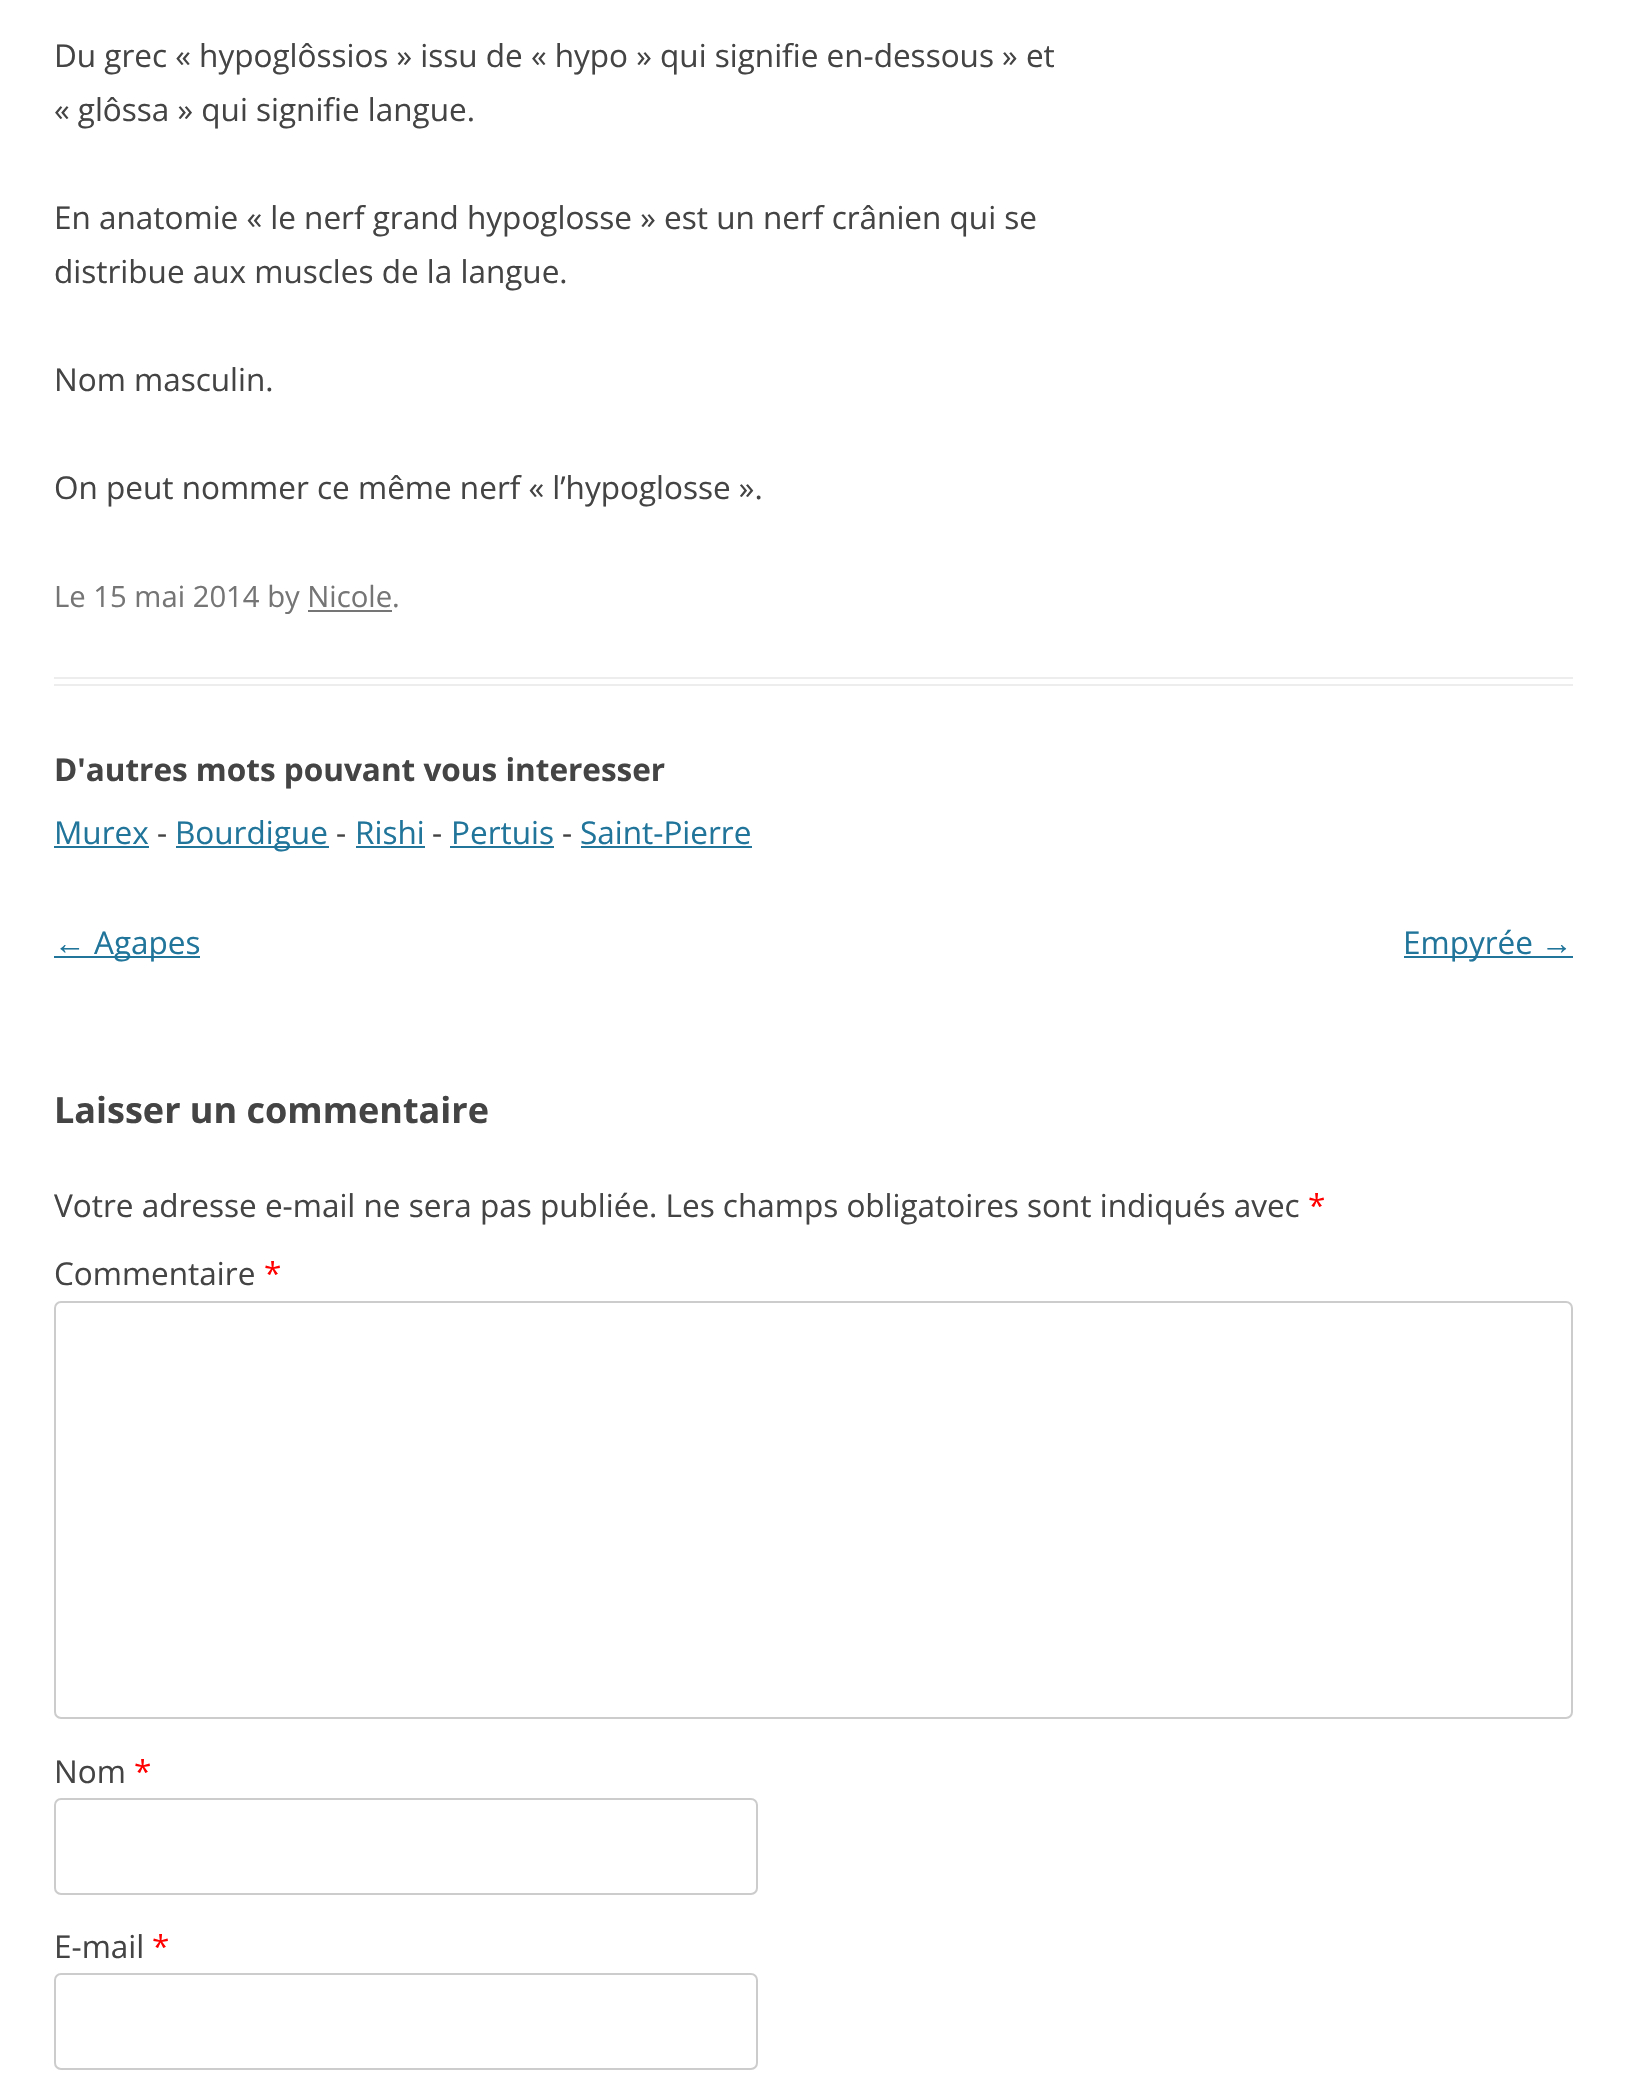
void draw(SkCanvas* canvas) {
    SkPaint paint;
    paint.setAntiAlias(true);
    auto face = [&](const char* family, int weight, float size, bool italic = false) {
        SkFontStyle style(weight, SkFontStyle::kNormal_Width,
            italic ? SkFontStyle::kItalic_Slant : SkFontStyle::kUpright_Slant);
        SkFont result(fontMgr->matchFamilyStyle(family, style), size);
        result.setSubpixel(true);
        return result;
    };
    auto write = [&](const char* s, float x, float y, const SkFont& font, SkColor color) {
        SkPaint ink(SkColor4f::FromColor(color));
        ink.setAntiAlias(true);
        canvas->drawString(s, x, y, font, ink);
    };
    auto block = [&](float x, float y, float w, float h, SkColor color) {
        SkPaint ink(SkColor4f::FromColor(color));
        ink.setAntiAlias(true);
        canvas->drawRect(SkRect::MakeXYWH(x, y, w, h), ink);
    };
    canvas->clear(SK_ColorWHITE);
    block(54, 677, 1519, 2, SkColorSetRGB(237, 237, 237));
    block(54, 684, 1519, 2, SkColorSetRGB(237, 237, 237));
    auto kFont1 = face("Open Sans", 400, 31.5f);
    write("Du grec « hypoglôssios » issu de « hypo » qui signifie en-dessous » et", 54, 67, kFont1, SkColorSetRGB(68, 68, 68));
    write("« glôssa » qui signifie langue.", 54, 121, kFont1, SkColorSetRGB(68, 68, 68));
    write("En anatomie « le nerf grand hypoglosse » est un nerf crânien qui se", 54, 229, kFont1, SkColorSetRGB(68, 68, 68));
    write("distribue aux muscles de la langue.", 54, 283, kFont1, SkColorSetRGB(68, 68, 68));
    write("Nom masculin.", 54, 391, kFont1, SkColorSetRGB(68, 68, 68));
    write("On peut nommer ce même nerf « l’hypoglosse ».", 54, 499, kFont1, SkColorSetRGB(68, 68, 68));
    auto kFont2 = face("Open Sans", 400, 29.25f);
    write("Le 15 mai 2014 by Nicole.", 54, 607, kFont2, SkColorSetRGB(117, 117, 117));
    block(308, 610, 84, 2, SkColorSetRGB(117, 117, 117));
    auto kFont3 = face("Open Sans", 700, 31.5f);
    write("D'autres mots pouvant vous interesser", 54, 781, kFont3, SkColorSetRGB(68, 68, 68));
    write("Murex", 54, 844, kFont1, SkColorSetRGB(33, 117, 155));
    block(54, 846, 95, 2, SkColorSetRGB(33, 117, 155));
    write("-", 157, 844, kFont1, SkColorSetRGB(68, 68, 68));
    block(176, 846, 153, 2, SkColorSetRGB(33, 117, 155));
    write("Bourdigue", 175, 844, kFont1, SkColorSetRGB(33, 117, 155));
    write("-", 336, 844, kFont1, SkColorSetRGB(68, 68, 68));
    write("Rishi", 355, 844, kFont1, SkColorSetRGB(33, 117, 155));
    block(356, 846, 69, 2, SkColorSetRGB(33, 117, 155));
    write("-", 432, 844, kFont1, SkColorSetRGB(68, 68, 68));
    write("Pertuis", 451, 844, kFont1, SkColorSetRGB(33, 117, 155));
    block(450, 846, 104, 2, SkColorSetRGB(33, 117, 155));
    write("-", 562, 844, kFont1, SkColorSetRGB(68, 68, 68));
    write("Saint-Pierre", 580, 844, kFont1, SkColorSetRGB(33, 117, 155));
    block(581, 846, 171, 2, SkColorSetRGB(33, 117, 155));
    auto kFont4 = face("Liberation Sans", 400, 31.5f);
    write("←", 54, 954, kFont4, SkColorSetRGB(33, 117, 155));
    block(54, 956, 146, 2, SkColorSetRGB(33, 117, 155));
    write("Agapes", 94, 954, kFont1, SkColorSetRGB(33, 117, 155));
    block(1404, 956, 169, 2, SkColorSetRGB(33, 117, 155));
    write("Empyrée", 1403, 954, kFont1, SkColorSetRGB(33, 117, 155));
    write("→", 1541, 954, kFont4, SkColorSetRGB(33, 117, 155));
    auto kFont5 = face("Open Sans", 700, 36);
    write("Laisser un commentaire", 54, 1123, kFont5, SkColorSetRGB(68, 68, 68));
    write("Votre adresse e-mail ne sera pas publiée. Les champs obligatoires sont indiqués avec", 54, 1217, kFont1, SkColorSetRGB(68, 68, 68));
    write("*", 1308, 1217, kFont1, SkColorSetRGB(255, 0, 0));
    write("Commentaire", 54, 1285, kFont1, SkColorSetRGB(68, 68, 68));
    write("*", 264, 1285, kFont1, SkColorSetRGB(255, 0, 0));
    paint.setStyle(SkPaint::kStroke_Style);
    paint.setStrokeWidth(2);
    paint.setColor(SkColorSetRGB(204, 204, 204));
    canvas->drawRoundRect(SkRect::MakeXYWH(55, 1302, 1517, 416), 6, 6, paint);
    write("Nom", 54, 1783, kFont1, SkColorSetRGB(68, 68, 68));
    write("*", 134, 1783, kFont1, SkColorSetRGB(255, 0, 0));
    canvas->drawRoundRect(SkRect::MakeXYWH(55, 1799, 702, 95), 6, 6, paint);
    write("E-mail", 54, 1958, kFont1, SkColorSetRGB(68, 68, 68));
    write("*", 152, 1958, kFont1, SkColorSetRGB(255, 0, 0));
    canvas->drawRoundRect(SkRect::MakeXYWH(55, 1974, 702, 95), 6, 6, paint);
}
